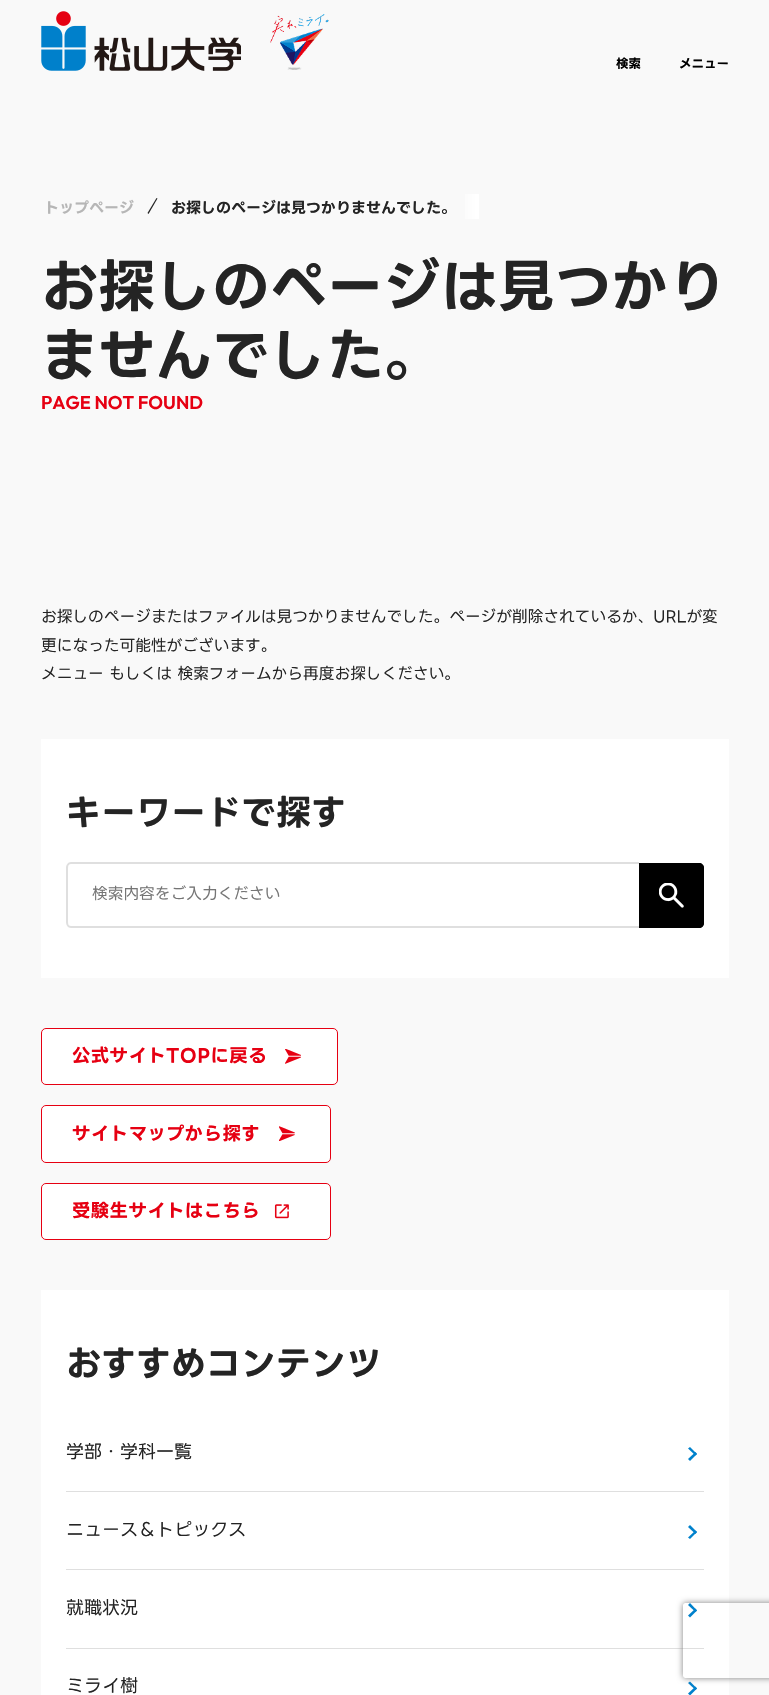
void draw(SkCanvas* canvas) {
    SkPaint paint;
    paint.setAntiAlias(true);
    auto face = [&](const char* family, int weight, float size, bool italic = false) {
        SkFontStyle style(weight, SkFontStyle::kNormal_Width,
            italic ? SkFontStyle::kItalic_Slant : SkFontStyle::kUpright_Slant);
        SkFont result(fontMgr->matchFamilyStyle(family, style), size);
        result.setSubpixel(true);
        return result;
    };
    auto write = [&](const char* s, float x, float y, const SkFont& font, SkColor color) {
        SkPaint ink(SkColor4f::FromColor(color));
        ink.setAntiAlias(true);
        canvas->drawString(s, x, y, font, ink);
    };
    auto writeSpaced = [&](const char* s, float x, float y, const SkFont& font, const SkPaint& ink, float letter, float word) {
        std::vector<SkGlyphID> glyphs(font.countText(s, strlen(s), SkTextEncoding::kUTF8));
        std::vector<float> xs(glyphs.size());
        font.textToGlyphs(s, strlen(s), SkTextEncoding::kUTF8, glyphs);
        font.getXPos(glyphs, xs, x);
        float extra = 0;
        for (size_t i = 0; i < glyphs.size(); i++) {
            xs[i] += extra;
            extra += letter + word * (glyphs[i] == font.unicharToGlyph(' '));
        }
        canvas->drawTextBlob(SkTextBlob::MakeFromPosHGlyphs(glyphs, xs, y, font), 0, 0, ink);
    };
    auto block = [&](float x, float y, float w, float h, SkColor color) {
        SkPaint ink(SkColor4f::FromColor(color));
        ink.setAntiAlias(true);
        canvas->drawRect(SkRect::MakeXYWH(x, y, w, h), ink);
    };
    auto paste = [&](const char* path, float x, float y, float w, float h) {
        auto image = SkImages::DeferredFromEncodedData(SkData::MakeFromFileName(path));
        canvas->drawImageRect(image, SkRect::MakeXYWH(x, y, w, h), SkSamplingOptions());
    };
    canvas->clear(SkColorSetRGB(249, 249, 249));
    paste("pic1.png", 41, 11, 200, 60);
    paste("pic2.png", 270, 14, 59, 56);
    auto kFont1 = face("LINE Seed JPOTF", 700, 12.5f);
    write("検索", 616, 68, kFont1, SK_ColorBLACK);
    write("メニュー", 679, 68, kFont1, SK_ColorBLACK);
    auto kFont2 = face("LINE Seed JPOTF", 700, 15);
    write("トップページ", 44, 213, kFont2, SkColorSetRGB(182, 182, 182));
    paint.setColor(SkColorSetRGB(36, 36, 36));
    canvas->drawPath(SkPathBuilder().moveTo(156.5f, 198).lineTo(157.5f, 198.5f).lineTo(148.5f, 214).lineTo(147.5f, 213).close().detach(), paint);
    write("お探しのページは見つかりませんでした。", 171, 213, kFont2, SkColorSetRGB(36, 36, 36));
    {
        const SkColor colors[] = {SkColorSetRGB(249, 249, 249), SK_ColorWHITE};
        const float stops[] = {0, 0.9f};
        const SkPoint ends[] = {{456, 206}, {479, 206}};
        paint.setShader(SkGradientShader::MakeLinear(ends, colors, stops, 2, SkTileMode::kClamp));
        paint.setAlpha(255);
    }
    canvas->drawRect(SkRect::MakeXYWH(465, 194, 14, 25), paint);
    auto kFont3 = face("LINE Seed JPOTF", 700, 57.1f);
    write("お探しのページは見つかり", 41, 307, kFont3, SkColorSetRGB(36, 36, 36));
    write("ませんでした。", 41, 376, kFont3, SkColorSetRGB(36, 36, 36));
    auto kFont4 = face("Outfit", 600, 18.4f);
    write("PAGE NOT FOUND", 41, 409, kFont4, SkColorSetRGB(230, 0, 18));
    auto kFont5 = face("LINE Seed JPOTF", 400, 15.7f);
    write("お探しのページまたはファイルは見つかりませんでした。ページが削除されているか、URLが変", 41, 622, kFont5, SkColorSetRGB(36, 36, 36));
    write("更になった可能性がございます。", 41, 651, kFont5, SkColorSetRGB(36, 36, 36));
    write("メニュー もしくは 検索フォームから再度お探しください。", 41, 679, kFont5, SkColorSetRGB(36, 36, 36));
    block(41, 739, 688, 239, SK_ColorWHITE);
    auto kFont6 = face("LINE Seed JPOTF", 700, 35);
    write("キーワードで探す", 66, 825, kFont6, SkColorSetRGB(36, 36, 36));
    paint.setShader(nullptr);
    paint.setColor(SkColorSetRGB(223, 223, 223));
    canvas->drawPath(SkPathBuilder(SkPathFillType::kEvenOdd).moveTo(71, 862).lineTo(639, 862).lineTo(639, 928).lineTo(71, 928).cubicTo(68, 928, 66, 925, 66, 922).lineTo(66, 868).cubicTo(66, 865, 68, 862, 71, 862).close().moveTo(71, 864).lineTo(639, 864).lineTo(639, 926).lineTo(71, 926).cubicTo(69, 926, 68, 925, 68, 922).lineTo(68, 868).cubicTo(68, 865, 69, 864, 71, 864).close().detach(), paint);
    write("検索内容をご入力ください", 92, 899, kFont5, SkColorSetRGB(117, 117, 117));
    paint.setColor(SK_ColorBLACK);
    canvas->drawPath(SkPathBuilder().moveTo(639, 863).lineTo(699, 863).cubicTo(702, 863, 704, 865, 704, 868).lineTo(704, 923).cubicTo(704, 926, 702, 928, 699, 928).lineTo(639, 928).close().detach(), paint);
    paste("pic3.png", 659, 883, 25, 25);
    paint.setStyle(SkPaint::kStroke_Style);
    paint.setStrokeWidth(1);
    canvas->drawPath(SkPathBuilder().moveTo(639.5f, 863.5f).lineTo(699, 863.5f).cubicTo(701.5f, 863.5f, 703.5f, 865.5f, 703.5f, 868).lineTo(703.5f, 923).cubicTo(703.5f, 925.5f, 701.5f, 927.5f, 699, 927.5f).lineTo(639.5f, 927.5f).close().detach(), paint);
    paint.setStyle(SkPaint::kFill_Style);
    paint.setColor(SK_ColorWHITE);
    canvas->drawRoundRect(SkRect::MakeXYWH(41.5f, 1028.5f, 296, 56), 4.5f, 4.5f, paint);
    paint.setStyle(SkPaint::kStroke_Style);
    paint.setColor(SkColorSetRGB(230, 0, 18));
    canvas->drawRoundRect(SkRect::MakeXYWH(41.5f, 1028.5f, 296, 56), 4.5f, 4.5f, paint);
    auto kFont7 = face("LINE Seed JPOTF", 700, 18.4f);
    paint.setStyle(SkPaint::kFill_Style);
    writeSpaced("公式サイトTOPに戻る", 72, 1062, kFont7, paint, 0.4f, 0);
    paste("pic4.png", 285, 1049, 16, 15);
    paint.setColor(SK_ColorWHITE);
    canvas->drawRoundRect(SkRect::MakeXYWH(41.5f, 1105.5f, 289, 57), 4.5f, 4.5f, paint);
    paint.setStyle(SkPaint::kStroke_Style);
    paint.setColor(SkColorSetRGB(230, 0, 18));
    canvas->drawRoundRect(SkRect::MakeXYWH(41.5f, 1105.5f, 289, 57), 4.5f, 4.5f, paint);
    paint.setStyle(SkPaint::kFill_Style);
    writeSpaced("サイトマップから探す", 72, 1140, kFont7, paint, 0.4f, 0);
    paste("pic5.png", 279, 1126, 16, 15);
    paint.setColor(SK_ColorWHITE);
    canvas->drawRoundRect(SkRect::MakeXYWH(41.5f, 1183.5f, 289, 56), 4.5f, 4.5f, paint);
    paint.setStyle(SkPaint::kStroke_Style);
    paint.setColor(SkColorSetRGB(230, 0, 18));
    canvas->drawRoundRect(SkRect::MakeXYWH(41.5f, 1183.5f, 289, 56), 4.5f, 4.5f, paint);
    paint.setStyle(SkPaint::kFill_Style);
    writeSpaced("受験生サイトはこちら", 72, 1217, kFont7, paint, 0.4f, 0);
    paste("pic6.png", 274, 1204, 15, 15);
    block(41, 1290, 688, 405, SK_ColorWHITE);
    write("おすすめコンテンツ", 66, 1376, kFont6, SkColorSetRGB(36, 36, 36));
    block(66, 1491, 638, 1, SkColorSetRGB(223, 223, 223));
    auto kFont8 = face("LINE Seed JPOTF", 400, 18);
    write("学部・学科一覧", 66, 1458, kFont8, SkColorSetRGB(36, 36, 36));
    paint.setColor(SkColorSetRGB(0, 129, 204));
    canvas->drawPath(SkPathBuilder().moveTo(690, 1447).lineTo(697, 1454).lineTo(695.5f, 1455.5f).lineTo(688, 1448.5f).close().detach(), paint);
    canvas->drawPath(SkPathBuilder().moveTo(695.5f, 1452).lineTo(697, 1454).lineTo(690, 1461).lineTo(688, 1459).close().detach(), paint);
    block(66, 1569, 638, 1, SkColorSetRGB(223, 223, 223));
    write("ニュース＆トピックス", 66, 1536, kFont8, SkColorSetRGB(36, 36, 36));
    canvas->drawPath(SkPathBuilder().moveTo(690, 1525).lineTo(697, 1532).lineTo(695.5f, 1534).lineTo(688, 1527).close().detach(), paint);
    canvas->drawPath(SkPathBuilder().moveTo(695.5f, 1530.5f).lineTo(697, 1532).lineTo(690, 1539).lineTo(688, 1537.5f).close().detach(), paint);
    block(66, 1648, 638, 1, SkColorSetRGB(223, 223, 223));
    write("就職状況", 66, 1614, kFont8, SkColorSetRGB(36, 36, 36));
    canvas->drawPath(SkPathBuilder().moveTo(690, 1603).lineTo(697, 1610.5f).lineTo(695.5f, 1612).lineTo(688, 1605).close().detach(), paint);
    canvas->drawPath(SkPathBuilder().moveTo(695.5f, 1608.5f).lineTo(697, 1610.5f).lineTo(690, 1617.5f).lineTo(688, 1615.5f).close().detach(), paint);
    write("ミライ樹", 66, 1692, kFont8, SkColorSetRGB(36, 36, 36));
    canvas->drawPath(SkPathBuilder().moveTo(690, 1681.5f).lineTo(697, 1688.5f).lineTo(695.5f, 1690).lineTo(688, 1683).close().detach(), paint);
    canvas->drawPath(SkPathBuilder().moveTo(695.5f, 1686.5f).lineTo(697, 1688.5f).lineTo(690, 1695.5f).lineTo(688, 1693.5f).close().detach(), paint);
    canvas->save();
    canvas->clipPath(SkPathBuilder(SkPathFillType::kEvenOdd).moveTo(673, 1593).lineTo(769, 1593).lineTo(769, 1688).lineTo(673, 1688).close().moveTo(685.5f, 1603).lineTo(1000.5f, 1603).cubicTo(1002, 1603, 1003, 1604, 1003, 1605.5f).lineTo(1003, 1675.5f).cubicTo(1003, 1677, 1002, 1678, 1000.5f, 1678).lineTo(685.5f, 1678).cubicTo(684, 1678, 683, 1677, 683, 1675.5f).lineTo(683, 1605.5f).cubicTo(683, 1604, 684, 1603, 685.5f, 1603).close().detach(), true);
    paint.setColor(SkColorSetRGB(128, 128, 128));
    paint.setMaskFilter(SkMaskFilter::MakeBlur(kNormal_SkBlurStyle, 3));
    canvas->drawRoundRect(SkRect::MakeXYWH(683, 1603, 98, 75), 2.5f, 2.5f, paint);
    paint.setMaskFilter(nullptr);
    canvas->restore();
}
